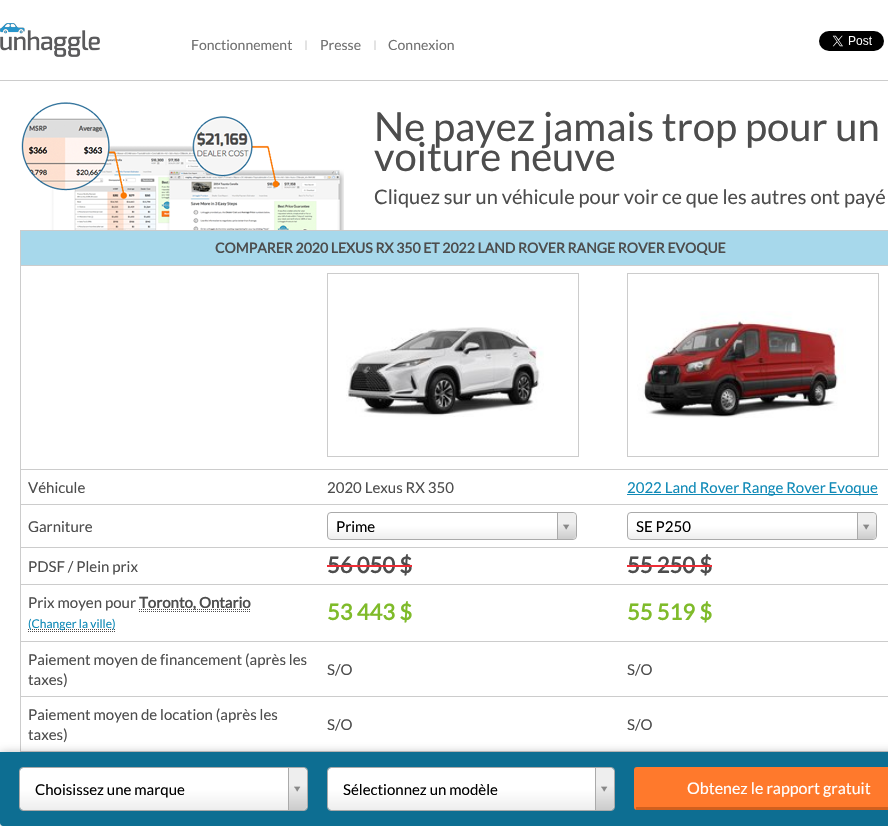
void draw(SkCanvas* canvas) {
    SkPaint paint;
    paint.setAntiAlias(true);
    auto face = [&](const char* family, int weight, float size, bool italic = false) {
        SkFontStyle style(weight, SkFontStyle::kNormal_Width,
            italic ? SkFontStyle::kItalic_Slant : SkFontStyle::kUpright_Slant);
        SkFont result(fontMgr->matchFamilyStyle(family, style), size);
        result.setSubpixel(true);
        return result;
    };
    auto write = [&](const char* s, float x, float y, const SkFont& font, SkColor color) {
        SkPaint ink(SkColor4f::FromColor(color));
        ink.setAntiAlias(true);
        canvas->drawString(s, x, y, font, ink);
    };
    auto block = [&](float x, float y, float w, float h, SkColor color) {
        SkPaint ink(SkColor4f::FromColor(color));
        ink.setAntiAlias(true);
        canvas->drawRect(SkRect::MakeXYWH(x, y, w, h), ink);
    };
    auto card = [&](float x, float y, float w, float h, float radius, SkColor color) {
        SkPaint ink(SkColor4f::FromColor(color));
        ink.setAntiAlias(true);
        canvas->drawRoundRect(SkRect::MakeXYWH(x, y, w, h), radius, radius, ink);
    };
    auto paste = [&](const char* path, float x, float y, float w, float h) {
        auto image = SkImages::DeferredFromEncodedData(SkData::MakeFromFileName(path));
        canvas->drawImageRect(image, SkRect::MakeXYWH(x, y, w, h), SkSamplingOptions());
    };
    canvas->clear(SK_ColorWHITE);
    paste("pic1.png", 0, 23, 100, 34);
    paste("pic2.png", 305, 40, 2, 10);
    auto kFont1 = face("Lato", 400, 14);
    write("Fonctionnement", 191, 50, kFont1, SkColorSetRGB(113, 113, 113));
    paste("pic2.png", 374, 40, 2, 10);
    write("Presse", 320, 50, kFont1, SkColorSetRGB(113, 113, 113));
    write("Connexion", 388, 50, kFont1, SkColorSetRGB(113, 113, 113));
    paste("pic3.png", 819, 31, 65, 20);
    block(0, 80, 888, 1, SkColorSetRGB(204, 204, 204));
    paste("pic4.png", 21, 102, 323, 128);
    auto kFont2 = face("Lato", 400, 40);
    write("Ne payez jamais trop pour un", 374, 141, kFont2, SkColorSetRGB(77, 77, 77));
    write("voiture neuve", 374, 171, kFont2, SkColorSetRGB(77, 77, 77));
    auto kFont3 = face("Lato", 400, 20);
    write("Cliquez sur un véhicule pour voir ce que les autres ont payé", 374, 204, kFont3, SkColorSetRGB(77, 77, 77));
    block(20, 230, 868, 1, SkColorSetRGB(204, 204, 204));
    block(20, 230, 1, 521, SkColorSetRGB(204, 204, 204));
    block(20, 265, 868, 1, SkColorSetRGB(204, 204, 204));
    block(21, 231, 867, 34, SkColorSetRGB(167, 216, 235));
    auto kFont4 = face("Lato", 700, 14);
    write("COMPARER 2020 LEXUS RX 350 ET 2022 LAND ROVER RANGE ROVER EVOQUE", 215, 253, kFont4, SkColorSetRGB(77, 77, 77));
    block(20, 469, 868, 1, SkColorSetRGB(204, 204, 204));
    paint.setStyle(SkPaint::kStroke_Style);
    paint.setStrokeWidth(1);
    paint.setColor(SkColorSetRGB(204, 204, 204));
    canvas->drawRect(SkRect::MakeXYWH(327.5f, 273.5f, 251, 183), paint);
    paste("pic5.png", 346, 327, 198, 90);
    canvas->drawRect(SkRect::MakeXYWH(627.5f, 273.5f, 251, 183), paint);
    paste("pic6.png", 637, 311, 209, 107);
    block(20, 504, 868, 1, SkColorSetRGB(204, 204, 204));
    auto kFont5 = face("Lato", 400, 15);
    write("Véhicule", 28, 493, kFont5, SkColorSetRGB(77, 77, 77));
    write("2020 Lexus RX 350", 327, 493, kFont5, SkColorSetRGB(77, 77, 77));
    block(627, 494, 251, 1, SkColorSetRGB(16, 138, 183));
    write("2022 Land Rover Range Rover Evoque", 627, 493, kFont5, SkColorSetRGB(16, 138, 183));
    block(20, 547, 868, 1, SkColorSetRGB(204, 204, 204));
    write("Garniture", 28, 532, kFont5, SkColorSetRGB(77, 77, 77));
    paint.setStyle(SkPaint::kFill_Style);
    {
        const SkColor colors[] = {SkColorSetRGB(238, 238, 238), SK_ColorWHITE};
        const float stops[] = {0, 0.5f};
        const SkPoint ends[] = {{328, 539}, {328, 513}};
        paint.setShader(SkGradientShader::MakeLinear(ends, colors, stops, 2, SkTileMode::kClamp));
        paint.setAlpha(255);
    }
    canvas->drawRoundRect(SkRect::MakeXYWH(328, 513, 248, 26), 3, 3, paint);
    paint.setStyle(SkPaint::kStroke_Style);
    paint.setShader(nullptr);
    paint.setColor(SkColorSetRGB(170, 170, 170));
    canvas->drawRoundRect(SkRect::MakeXYWH(327.5f, 512.5f, 249, 27), 3.5f, 3.5f, paint);
    write("Prime", 336, 532, kFont5, SK_ColorBLACK);
    canvas->save();
    canvas->clipPath(SkPathBuilder().moveTo(331, 513).lineTo(573, 513).cubicTo(574.5f, 513, 576, 514.5f, 576, 516).lineTo(576, 536).cubicTo(576, 537.5f, 574.5f, 539, 573, 539).lineTo(331, 539).cubicTo(329.5f, 539, 328, 537.5f, 328, 536).lineTo(328, 516).cubicTo(328, 514.5f, 329.5f, 513, 331, 513).close().detach(), true);
    paint.setStyle(SkPaint::kFill_Style);
    {
        const SkColor colors[] = {SkColorSetRGB(204, 204, 204), SkColorSetRGB(238, 238, 238)};
        const float stops[] = {0, 0.6f};
        const SkPoint ends[] = {{558, 539}, {558, 513}};
        paint.setShader(SkGradientShader::MakeLinear(ends, colors, stops, 2, SkTileMode::kClamp));
        paint.setAlpha(255);
    }
    canvas->drawPath(SkPathBuilder().moveTo(557, 513).lineTo(572, 513).cubicTo(574, 513, 576, 515, 576, 517).lineTo(576, 535).cubicTo(576, 537, 574, 539, 572, 539).lineTo(557, 539).close().detach(), paint);
    canvas->restore();
    block(557, 513, 1, 26, SkColorSetRGB(170, 170, 170));
    paste("pic7.png", 563, 524, 7, 6);
    {
        const SkColor colors[] = {SkColorSetRGB(238, 238, 238), SK_ColorWHITE};
        const float stops[] = {0, 0.5f};
        const SkPoint ends[] = {{628, 539}, {628, 513}};
        paint.setShader(SkGradientShader::MakeLinear(ends, colors, stops, 2, SkTileMode::kClamp));
        paint.setAlpha(255);
    }
    canvas->drawRoundRect(SkRect::MakeXYWH(628, 513, 248, 26), 3, 3, paint);
    paint.setStyle(SkPaint::kStroke_Style);
    paint.setShader(nullptr);
    paint.setColor(SkColorSetRGB(170, 170, 170));
    canvas->drawRoundRect(SkRect::MakeXYWH(627.5f, 512.5f, 249, 27), 3.5f, 3.5f, paint);
    write("SE P250", 636, 532, kFont5, SK_ColorBLACK);
    canvas->save();
    canvas->clipPath(SkPathBuilder().moveTo(631, 513).lineTo(873, 513).cubicTo(874.5f, 513, 876, 514.5f, 876, 516).lineTo(876, 536).cubicTo(876, 537.5f, 874.5f, 539, 873, 539).lineTo(631, 539).cubicTo(629.5f, 539, 628, 537.5f, 628, 536).lineTo(628, 516).cubicTo(628, 514.5f, 629.5f, 513, 631, 513).close().detach(), true);
    paint.setStyle(SkPaint::kFill_Style);
    {
        const SkColor colors[] = {SkColorSetRGB(204, 204, 204), SkColorSetRGB(238, 238, 238)};
        const float stops[] = {0, 0.6f};
        const SkPoint ends[] = {{858, 539}, {858, 513}};
        paint.setShader(SkGradientShader::MakeLinear(ends, colors, stops, 2, SkTileMode::kClamp));
        paint.setAlpha(255);
    }
    canvas->drawPath(SkPathBuilder().moveTo(857, 513).lineTo(872, 513).cubicTo(874, 513, 876, 515, 876, 517).lineTo(876, 535).cubicTo(876, 537, 874, 539, 872, 539).lineTo(857, 539).close().detach(), paint);
    canvas->restore();
    block(857, 513, 1, 26, SkColorSetRGB(170, 170, 170));
    paste("pic7.png", 863, 524, 7, 6);
    block(20, 584, 868, 1, SkColorSetRGB(204, 204, 204));
    write("PDSF / Plein prix", 28, 572, kFont5, SkColorSetRGB(77, 77, 77));
    auto kFont6 = face("Lato", 700, 22);
    write("56 050 $", 327, 573, kFont6, SkColorSetRGB(77, 77, 77));
    block(327, 565, 85, 2, SkColorSetRGB(237, 44, 53));
    write("55 250 $", 627, 573, kFont6, SkColorSetRGB(77, 77, 77));
    block(627, 565, 85, 2, SkColorSetRGB(237, 44, 53));
    block(20, 641, 868, 1, SkColorSetRGB(204, 204, 204));
    write("Prix moyen pour", 28, 608, kFont5, SkColorSetRGB(77, 77, 77));
    paint.setStyle(SkPaint::kStroke_Style);
    paint.setShader(nullptr);
    paint.setColor(SkColorSetRGB(77, 77, 77));
    paint.setPathEffect(SkDashPathEffect::Make({{1, 1}}, 0));
    canvas->drawPath(SkPathBuilder().moveTo(139, 609.5f).lineTo(250.5f, 609.5f).detach(), paint);
    paint.setPathEffect(nullptr);
    auto kFont7 = face("Lato", 700, 15);
    write("Toronto, Ontario", 139, 608, kFont7, SkColorSetRGB(77, 77, 77));
    paint.setPathEffect(SkDashPathEffect::Make({{1, 1}}, 0));
    canvas->drawPath(SkPathBuilder().moveTo(139, 611.5f).lineTo(251, 611.5f).detach(), paint);
    paint.setPathEffect(nullptr);
    paint.setPathEffect(SkDashPathEffect::Make({{1, 1}}, 0));
    canvas->drawPath(SkPathBuilder().moveTo(28, 629.5f).lineTo(115.5f, 629.5f).detach(), paint);
    paint.setPathEffect(nullptr);
    auto kFont8 = face("Lato", 400, 12);
    write("(Changer la ville)", 28, 628, kFont8, SkColorSetRGB(16, 138, 183));
    paint.setPathEffect(SkDashPathEffect::Make({{1, 1}}, 0));
    canvas->drawPath(SkPathBuilder().moveTo(28, 631.5f).lineTo(116, 631.5f).detach(), paint);
    paint.setPathEffect(nullptr);
    write("53 443 $", 327, 620, kFont6, SkColorSetRGB(127, 187, 42));
    write("55 519 $", 627, 620, kFont6, SkColorSetRGB(127, 187, 42));
    block(20, 696, 868, 1, SkColorSetRGB(204, 204, 204));
    write("Paiement moyen de financement (après les", 28, 665, kFont5, SkColorSetRGB(77, 77, 77));
    write("taxes)", 28, 685, kFont5, SkColorSetRGB(77, 77, 77));
    write("S/O", 327, 675, kFont5, SkColorSetRGB(77, 77, 77));
    write("S/O", 627, 675, kFont5, SkColorSetRGB(77, 77, 77));
    block(20, 751, 868, 1, SkColorSetRGB(204, 204, 204));
    write("Paiement moyen de location (après les", 28, 720, kFont5, SkColorSetRGB(77, 77, 77));
    write("taxes)", 28, 740, kFont5, SkColorSetRGB(77, 77, 77));
    write("S/O", 327, 730, kFont5, SkColorSetRGB(77, 77, 77));
    write("S/O", 627, 730, kFont5, SkColorSetRGB(77, 77, 77));
    paint.setStyle(SkPaint::kFill_Style);
    paint.setColor(SkColorSetARGB(77, 0, 0, 0));
    paint.setMaskFilter(SkMaskFilter::MakeBlur(kNormal_SkBlurStyle, 5));
    canvas->drawRoundRect(SkRect::MakeXYWH(0, 753, 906, 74), 3, 3, paint);
    paint.setMaskFilter(nullptr);
    paint.setColor(SkColorSetRGB(13, 110, 146));
    canvas->drawPath(SkPathBuilder().moveTo(0, 752).lineTo(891, 752).lineTo(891, 823).cubicTo(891, 824.5f, 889.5f, 826, 888, 826).lineTo(3, 826).cubicTo(1.5f, 826, 0, 824.5f, 0, 823).close().detach(), paint);
    {
        const SkColor colors[] = {SkColorSetRGB(238, 238, 238), SK_ColorWHITE};
        const float stops[] = {0, 0.5f};
        const SkPoint ends[] = {{20, 810}, {20, 768}};
        paint.setShader(SkGradientShader::MakeLinear(ends, colors, stops, 2, SkTileMode::kClamp));
        paint.setAlpha(255);
    }
    canvas->drawRoundRect(SkRect::MakeXYWH(20, 768, 287, 42), 3, 3, paint);
    paint.setStyle(SkPaint::kStroke_Style);
    paint.setShader(nullptr);
    paint.setColor(SkColorSetRGB(170, 170, 170));
    canvas->drawRoundRect(SkRect::MakeXYWH(19.5f, 767.5f, 288, 43), 3.5f, 3.5f, paint);
    write("Choisissez une marque", 35, 795, kFont5, SK_ColorBLACK);
    canvas->save();
    canvas->clipPath(SkPathBuilder().moveTo(23, 768).lineTo(304, 768).cubicTo(305.5f, 768, 307, 769.5f, 307, 771).lineTo(307, 807).cubicTo(307, 808.5f, 305.5f, 810, 304, 810).lineTo(23, 810).cubicTo(21.5f, 810, 20, 808.5f, 20, 807).lineTo(20, 771).cubicTo(20, 769.5f, 21.5f, 768, 23, 768).close().detach(), true);
    paint.setStyle(SkPaint::kFill_Style);
    {
        const SkColor colors[] = {SkColorSetRGB(204, 204, 204), SkColorSetRGB(238, 238, 238)};
        const float stops[] = {0, 0.6f};
        const SkPoint ends[] = {{289, 810}, {289, 768}};
        paint.setShader(SkGradientShader::MakeLinear(ends, colors, stops, 2, SkTileMode::kClamp));
        paint.setAlpha(255);
    }
    canvas->drawPath(SkPathBuilder().moveTo(288, 768).lineTo(303, 768).cubicTo(305, 768, 307, 770, 307, 772).lineTo(307, 806).cubicTo(307, 808, 305, 810, 303, 810).lineTo(288, 810).close().detach(), paint);
    canvas->restore();
    block(288, 768, 1, 42, SkColorSetRGB(170, 170, 170));
    paste("pic8.png", 294, 786, 7, 6);
    {
        const SkColor colors[] = {SkColorSetRGB(238, 238, 238), SK_ColorWHITE};
        const float stops[] = {0, 0.5f};
        const SkPoint ends[] = {{328, 810}, {328, 768}};
        paint.setShader(SkGradientShader::MakeLinear(ends, colors, stops, 2, SkTileMode::kClamp));
        paint.setAlpha(255);
    }
    canvas->drawRoundRect(SkRect::MakeXYWH(328, 768, 286, 42), 3, 3, paint);
    paint.setStyle(SkPaint::kStroke_Style);
    paint.setShader(nullptr);
    paint.setColor(SkColorSetRGB(170, 170, 170));
    canvas->drawRoundRect(SkRect::MakeXYWH(327.5f, 767.5f, 287, 43), 3.5f, 3.5f, paint);
    write("Sélectionnez un modèle", 343, 795, kFont5, SK_ColorBLACK);
    canvas->save();
    canvas->clipPath(SkPathBuilder().moveTo(331, 768).lineTo(611, 768).cubicTo(612.5f, 768, 614, 769.5f, 614, 771).lineTo(614, 807).cubicTo(614, 808.5f, 612.5f, 810, 611, 810).lineTo(331, 810).cubicTo(329.5f, 810, 328, 808.5f, 328, 807).lineTo(328, 771).cubicTo(328, 769.5f, 329.5f, 768, 331, 768).close().detach(), true);
    paint.setStyle(SkPaint::kFill_Style);
    {
        const SkColor colors[] = {SkColorSetRGB(204, 204, 204), SkColorSetRGB(238, 238, 238)};
        const float stops[] = {0, 0.6f};
        const SkPoint ends[] = {{596, 810}, {596, 768}};
        paint.setShader(SkGradientShader::MakeLinear(ends, colors, stops, 2, SkTileMode::kClamp));
        paint.setAlpha(255);
    }
    canvas->drawPath(SkPathBuilder().moveTo(595, 768).lineTo(610, 768).cubicTo(612, 768, 614, 770, 614, 772).lineTo(614, 806).cubicTo(614, 808, 612, 810, 610, 810).lineTo(595, 810).close().detach(), paint);
    canvas->restore();
    block(595, 768, 1, 42, SkColorSetRGB(170, 170, 170));
    paste("pic8.png", 601, 786, 7, 6);
    card(634, 767, 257, 43, 3, SkColorSetRGB(255, 121, 44));
    block(636, 807, 252, 3, SkColorSetRGB(209, 96, 30));
    auto kFont9 = face("Lato", 400, 16);
    write("Obtenez le rapport gratuit", 687, 794, kFont9, SK_ColorWHITE);
}
